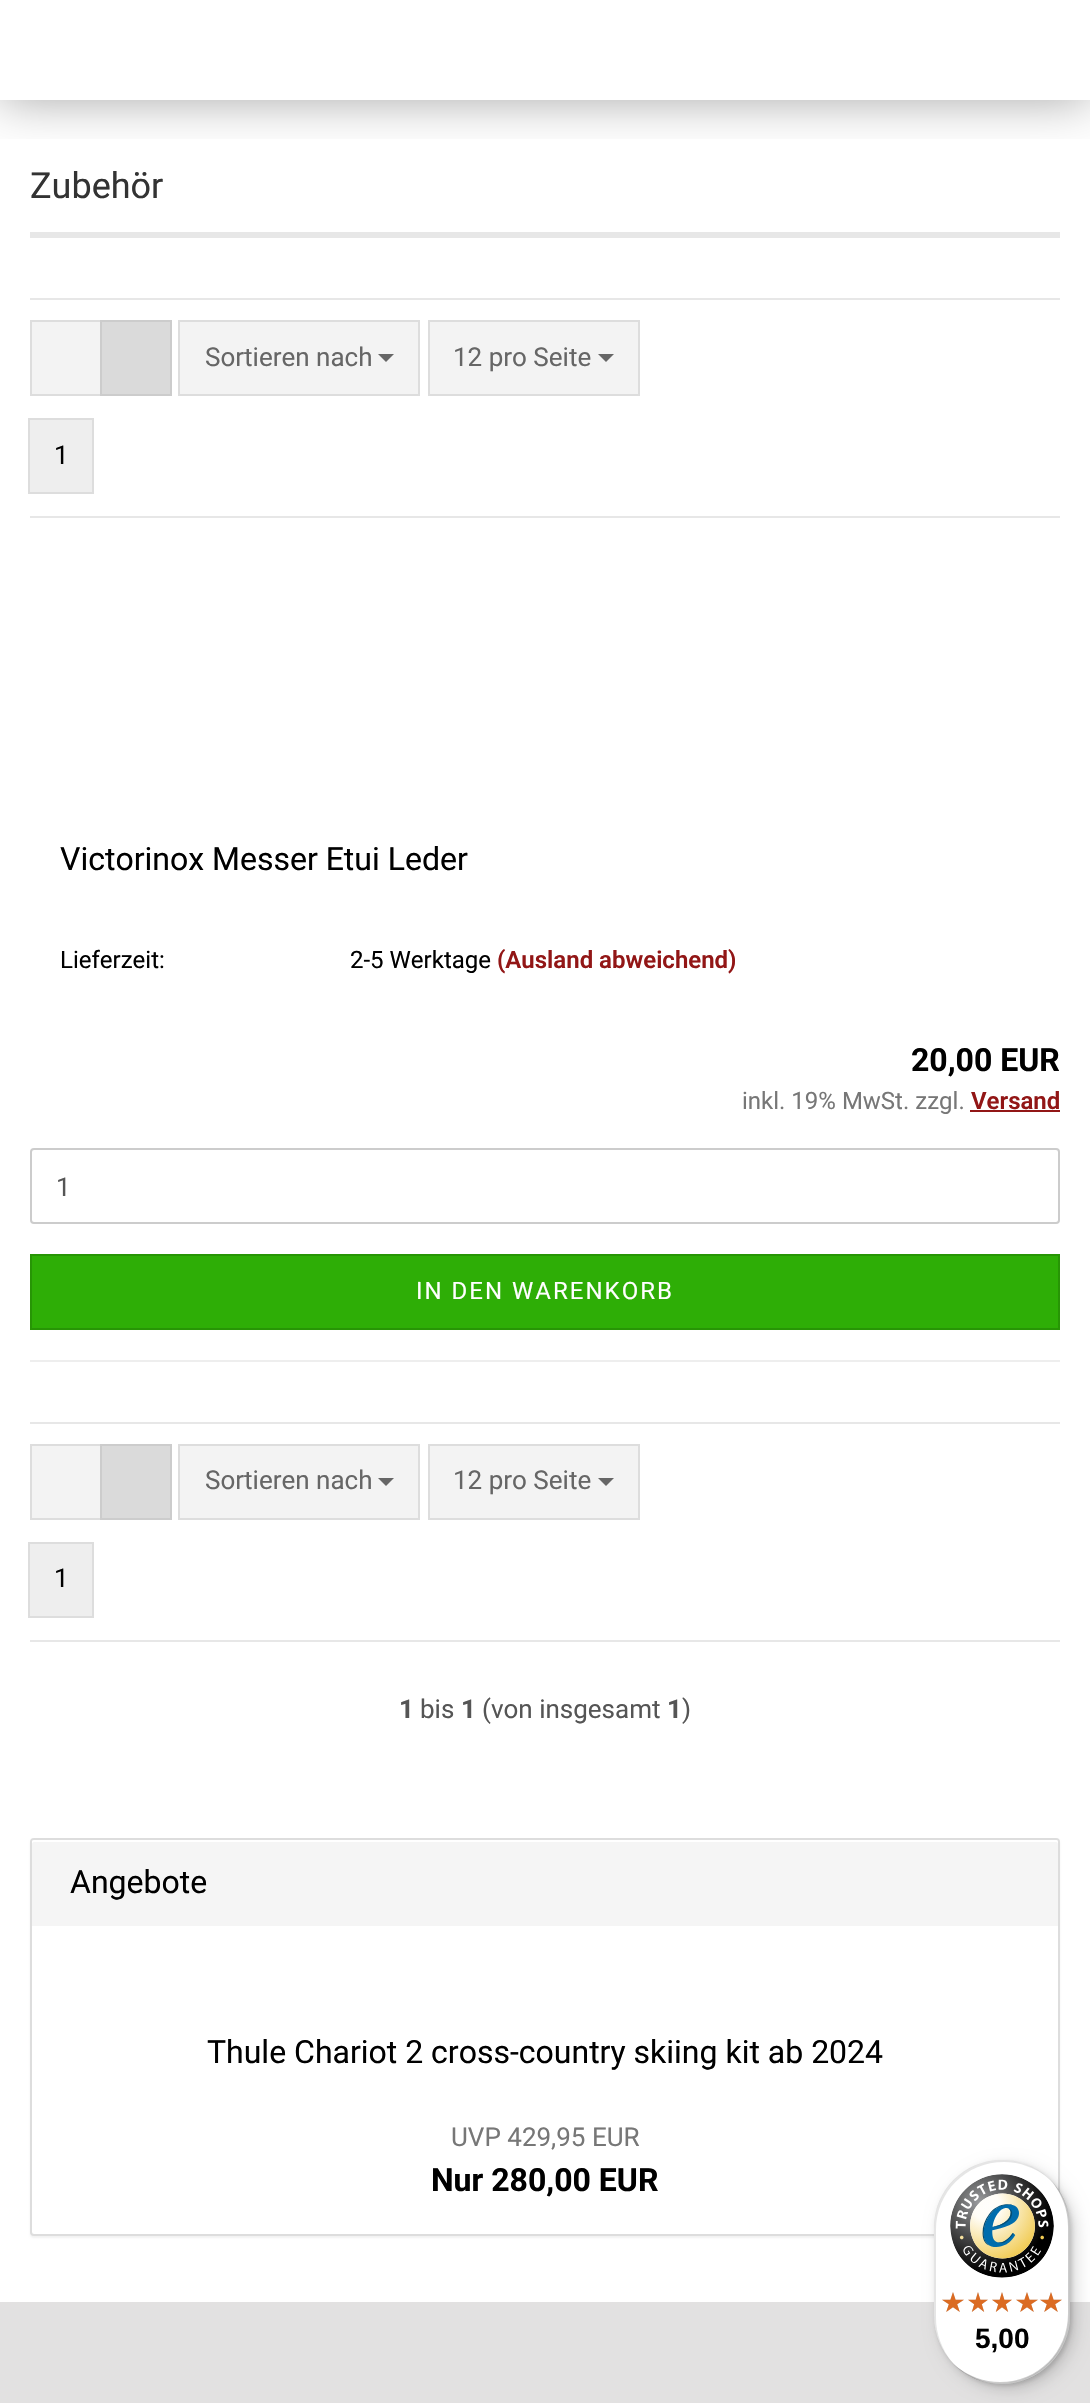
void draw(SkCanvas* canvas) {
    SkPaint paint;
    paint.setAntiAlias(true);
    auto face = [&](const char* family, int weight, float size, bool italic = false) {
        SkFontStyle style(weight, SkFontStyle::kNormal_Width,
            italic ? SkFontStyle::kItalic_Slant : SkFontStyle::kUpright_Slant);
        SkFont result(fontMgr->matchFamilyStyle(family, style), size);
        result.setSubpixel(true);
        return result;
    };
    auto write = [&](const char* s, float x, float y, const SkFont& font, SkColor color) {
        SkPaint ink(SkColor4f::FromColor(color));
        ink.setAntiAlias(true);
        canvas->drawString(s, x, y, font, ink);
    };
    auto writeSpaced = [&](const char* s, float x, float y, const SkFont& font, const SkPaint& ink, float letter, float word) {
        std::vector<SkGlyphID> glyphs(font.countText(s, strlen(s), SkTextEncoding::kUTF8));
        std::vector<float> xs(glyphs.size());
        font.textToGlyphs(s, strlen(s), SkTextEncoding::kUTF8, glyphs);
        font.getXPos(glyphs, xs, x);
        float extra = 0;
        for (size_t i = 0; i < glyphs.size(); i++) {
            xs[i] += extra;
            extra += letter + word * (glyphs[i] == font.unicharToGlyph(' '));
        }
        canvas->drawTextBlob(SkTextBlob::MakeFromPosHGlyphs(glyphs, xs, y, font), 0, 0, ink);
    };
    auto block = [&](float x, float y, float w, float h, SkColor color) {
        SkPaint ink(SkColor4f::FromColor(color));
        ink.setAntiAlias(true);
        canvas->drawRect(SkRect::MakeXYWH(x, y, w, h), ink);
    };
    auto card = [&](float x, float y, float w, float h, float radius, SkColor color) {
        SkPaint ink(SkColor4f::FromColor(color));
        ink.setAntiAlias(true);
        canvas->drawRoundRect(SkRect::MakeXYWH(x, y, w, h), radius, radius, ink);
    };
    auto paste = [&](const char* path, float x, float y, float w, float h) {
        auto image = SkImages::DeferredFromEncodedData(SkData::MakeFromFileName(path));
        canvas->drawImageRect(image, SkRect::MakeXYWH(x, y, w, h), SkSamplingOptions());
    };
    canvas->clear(SK_ColorWHITE);
    canvas->save();
    canvas->clipRect(SkRect::MakeXYWH(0, 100, 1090, 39));
    paint.setColor(SkColorSetARGB(89, 0, 0, 0));
    paint.setMaskFilter(SkMaskFilter::MakeBlur(kNormal_SkBlurStyle, 25));
    canvas->drawRect(SkRect::MakeXYWH(0, 0, 1090, 100), paint);
    paint.setMaskFilter(nullptr);
    canvas->restore();
    block(30, 232, 1030, 6, SkColorSetRGB(231, 231, 231));
    auto kFont1 = face("Roboto", 400, 36);
    write("Zubehör", 30, 198, kFont1, SkColorSetRGB(51, 51, 51));
    block(30, 298, 1030, 2, SkColorSetRGB(231, 231, 231));
    block(30, 516, 1030, 2, SkColorSetRGB(231, 231, 231));
    paint.setColor(SkColorSetRGB(243, 243, 243));
    canvas->drawRect(SkRect::MakeXYWH(31, 321, 70, 74), paint);
    paint.setStyle(SkPaint::kStroke_Style);
    paint.setStrokeWidth(2);
    paint.setColor(SkColorSetRGB(221, 221, 221));
    canvas->drawRect(SkRect::MakeXYWH(31, 321, 70, 74), paint);
    paint.setStyle(SkPaint::kFill_Style);
    paint.setColor(SkColorSetRGB(218, 218, 218));
    canvas->drawRect(SkRect::MakeXYWH(101, 321, 70, 74), paint);
    paint.setStyle(SkPaint::kStroke_Style);
    paint.setColor(SkColorSetRGB(204, 204, 204));
    canvas->drawRect(SkRect::MakeXYWH(101, 321, 70, 74), paint);
    paint.setStyle(SkPaint::kFill_Style);
    paint.setColor(SkColorSetRGB(243, 243, 243));
    canvas->drawRect(SkRect::MakeXYWH(179, 321, 240, 74), paint);
    paint.setStyle(SkPaint::kStroke_Style);
    paint.setColor(SkColorSetRGB(221, 221, 221));
    canvas->drawRect(SkRect::MakeXYWH(179, 321, 240, 74), paint);
    auto kFont2 = face("Roboto", 400, 26);
    write("Sortieren nach", 205, 366, kFont2, SkColorSetRGB(102, 102, 102));
    paint.setStyle(SkPaint::kFill_Style);
    paint.setColor(SkColorSetRGB(102, 102, 102));
    canvas->drawPath(SkPathBuilder().moveTo(378, 354).lineTo(394, 354).lineTo(386, 362).close().detach(), paint);
    paint.setColor(SkColorSetRGB(243, 243, 243));
    canvas->drawRect(SkRect::MakeXYWH(429, 321, 210, 74), paint);
    paint.setStyle(SkPaint::kStroke_Style);
    paint.setColor(SkColorSetRGB(221, 221, 221));
    canvas->drawRect(SkRect::MakeXYWH(429, 321, 210, 74), paint);
    write("12 pro Seite", 453, 366, kFont2, SkColorSetRGB(102, 102, 102));
    paint.setStyle(SkPaint::kFill_Style);
    paint.setColor(SkColorSetRGB(102, 102, 102));
    canvas->drawPath(SkPathBuilder().moveTo(598, 354).lineTo(614, 354).lineTo(606, 362).close().detach(), paint);
    paint.setColor(SkColorSetRGB(238, 238, 238));
    canvas->drawRect(SkRect::MakeXYWH(29, 419, 64, 74), paint);
    paint.setStyle(SkPaint::kStroke_Style);
    paint.setColor(SkColorSetRGB(221, 221, 221));
    canvas->drawRect(SkRect::MakeXYWH(29, 419, 64, 74), paint);
    write("1", 54, 464, kFont2, SK_ColorBLACK);
    block(30, 1360, 1030, 2, SkColorSetRGB(238, 238, 238));
    auto kFont3 = face("Roboto", 400, 32);
    write("Victorinox Messer Etui Leder", 60, 870, kFont3, SK_ColorBLACK);
    auto kFont4 = face("Roboto", 400, 24);
    write("Lieferzeit:", 60, 968, kFont4, SK_ColorBLACK);
    write("2-5 Werktage", 350, 968, kFont4, SK_ColorBLACK);
    auto kFont5 = face("Roboto", 600, 24);
    write("(Ausland abweichend)", 497, 968, kFont5, SkColorSetRGB(146, 22, 22));
    auto kFont6 = face("Roboto", 700, 32);
    write("20,00 EUR", 911, 1071, kFont6, SK_ColorBLACK);
    write("inkl. 19% MwSt. zzgl.", 742, 1109, kFont4, SkColorSetRGB(119, 119, 119));
    write("Versand", 971, 1109, kFont5, SkColorSetRGB(146, 22, 22));
    block(970, 1110, 90, 2, SkColorSetRGB(146, 22, 22));
    paint.setColor(SkColorSetRGB(204, 204, 204));
    canvas->drawRoundRect(SkRect::MakeXYWH(31, 1149, 1028, 74), 3, 3, paint);
    write("1", 56, 1196, kFont2, SkColorSetRGB(85, 85, 85));
    paint.setStyle(SkPaint::kFill_Style);
    paint.setColor(SkColorSetRGB(46, 174, 6));
    canvas->drawRect(SkRect::MakeXYWH(31, 1255, 1028, 74), paint);
    paint.setStyle(SkPaint::kStroke_Style);
    paint.setColor(SkColorSetRGB(39, 149, 5));
    canvas->drawRect(SkRect::MakeXYWH(31, 1255, 1028, 74), paint);
    paint.setStyle(SkPaint::kFill_Style);
    paint.setColor(SK_ColorWHITE);
    writeSpaced("IN DEN WARENKORB", 416, 1299, kFont4, paint, 2, 0);
    block(30, 1422, 1030, 2, SkColorSetRGB(231, 231, 231));
    block(30, 1640, 1030, 2, SkColorSetRGB(231, 231, 231));
    paint.setColor(SkColorSetRGB(243, 243, 243));
    canvas->drawRect(SkRect::MakeXYWH(31, 1445, 70, 74), paint);
    paint.setStyle(SkPaint::kStroke_Style);
    paint.setColor(SkColorSetRGB(221, 221, 221));
    canvas->drawRect(SkRect::MakeXYWH(31, 1445, 70, 74), paint);
    paint.setStyle(SkPaint::kFill_Style);
    paint.setColor(SkColorSetRGB(218, 218, 218));
    canvas->drawRect(SkRect::MakeXYWH(101, 1445, 70, 74), paint);
    paint.setStyle(SkPaint::kStroke_Style);
    paint.setColor(SkColorSetRGB(204, 204, 204));
    canvas->drawRect(SkRect::MakeXYWH(101, 1445, 70, 74), paint);
    paint.setStyle(SkPaint::kFill_Style);
    paint.setColor(SkColorSetRGB(243, 243, 243));
    canvas->drawRect(SkRect::MakeXYWH(179, 1445, 240, 74), paint);
    paint.setStyle(SkPaint::kStroke_Style);
    paint.setColor(SkColorSetRGB(221, 221, 221));
    canvas->drawRect(SkRect::MakeXYWH(179, 1445, 240, 74), paint);
    write("Sortieren nach", 205, 1489, kFont2, SkColorSetRGB(102, 102, 102));
    paint.setStyle(SkPaint::kFill_Style);
    paint.setColor(SkColorSetRGB(102, 102, 102));
    canvas->drawPath(SkPathBuilder().moveTo(378, 1478).lineTo(394, 1478).lineTo(386, 1486).close().detach(), paint);
    paint.setColor(SkColorSetRGB(243, 243, 243));
    canvas->drawRect(SkRect::MakeXYWH(429, 1445, 210, 74), paint);
    paint.setStyle(SkPaint::kStroke_Style);
    paint.setColor(SkColorSetRGB(221, 221, 221));
    canvas->drawRect(SkRect::MakeXYWH(429, 1445, 210, 74), paint);
    write("12 pro Seite", 453, 1489, kFont2, SkColorSetRGB(102, 102, 102));
    paint.setStyle(SkPaint::kFill_Style);
    paint.setColor(SkColorSetRGB(102, 102, 102));
    canvas->drawPath(SkPathBuilder().moveTo(598, 1478).lineTo(614, 1478).lineTo(606, 1486).close().detach(), paint);
    paint.setColor(SkColorSetRGB(238, 238, 238));
    canvas->drawRect(SkRect::MakeXYWH(29, 1543, 64, 74), paint);
    paint.setStyle(SkPaint::kStroke_Style);
    paint.setColor(SkColorSetRGB(221, 221, 221));
    canvas->drawRect(SkRect::MakeXYWH(29, 1543, 64, 74), paint);
    write("1", 54, 1587, kFont2, SK_ColorBLACK);
    auto kFont7 = face("Roboto", 700, 26);
    write("1", 399, 1718, kFont7, SkColorSetRGB(85, 85, 85));
    write("bis", 420, 1718, kFont2, SkColorSetRGB(85, 85, 85));
    write("1", 461, 1718, kFont7, SkColorSetRGB(85, 85, 85));
    write("(von insgesamt", 482, 1718, kFont2, SkColorSetRGB(85, 85, 85));
    write("1", 667, 1718, kFont7, SkColorSetRGB(85, 85, 85));
    write(")", 682, 1718, kFont2, SkColorSetRGB(85, 85, 85));
    paint.setStyle(SkPaint::kFill_Style);
    paint.setColor(SkColorSetARGB(13, 0, 0, 0));
    paint.setMaskFilter(SkMaskFilter::MakeBlur(kNormal_SkBlurStyle, 1));
    canvas->drawRoundRect(SkRect::MakeXYWH(30, 1840, 1030, 398), 4, 4, paint);
    paint.setMaskFilter(nullptr);
    paint.setColor(SK_ColorWHITE);
    canvas->drawRoundRect(SkRect::MakeXYWH(31, 1839, 1028, 396), 3, 3, paint);
    paint.setStyle(SkPaint::kStroke_Style);
    paint.setColor(SkColorSetRGB(221, 221, 221));
    canvas->drawRoundRect(SkRect::MakeXYWH(31, 1839, 1028, 396), 3, 3, paint);
    paint.setStyle(SkPaint::kFill_Style);
    paint.setColor(SkColorSetRGB(245, 245, 245));
    canvas->drawPath(SkPathBuilder().moveTo(34, 1840).lineTo(1056, 1840).cubicTo(1057, 1840, 1058, 1841, 1058, 1842).lineTo(1058, 1926).lineTo(32, 1926).lineTo(32, 1842).cubicTo(32, 1841, 33, 1840, 34, 1840).close().detach(), paint);
    paint.setColor(SK_ColorWHITE);
    canvas->drawPath(SkPathBuilder().moveTo(34, 1842).lineTo(1056, 1842).cubicTo(1057, 1842, 1058, 1843, 1058, 1844).cubicTo(1058, 1842, 1058, 1840, 1056, 1840).lineTo(34, 1840).lineTo(32, 1841).lineTo(32, 1844).cubicTo(32, 1843, 33, 1842, 34, 1842).close().detach(), paint);
    write("Angebote", 70, 1893, kFont3, SK_ColorBLACK);
    write("Thule Chariot 2 cross-country skiing kit ab 2024", 207, 2063, kFont3, SK_ColorBLACK);
    write("UVP 429,95 EUR", 451, 2146, kFont2, SkColorSetRGB(119, 119, 119));
    write("Nur 280,00 EUR", 431, 2191, kFont6, SK_ColorBLACK);
    block(0, 2302, 1090, 101, SkColorSetRGB(226, 225, 225));
    paint.setColor(SkColorSetARGB(38, 0, 0, 0));
    paint.setMaskFilter(SkMaskFilter::MakeBlur(kNormal_SkBlurStyle, 8));
    canvas->drawRoundRect(SkRect::MakeXYWH(940, 2166, 136, 224), 68, 68, paint);
    paint.setMaskFilter(nullptr);
    paint.setMaskFilter(SkMaskFilter::MakeBlur(kNormal_SkBlurStyle, 2));
    canvas->drawRoundRect(SkRect::MakeXYWH(936, 2162, 136, 224), 68, 68, paint);
    paint.setMaskFilter(nullptr);
    card(934, 2160, 136, 224, 68, SK_ColorWHITE);
    paint.setColor(SkColorSetARGB(26, 0, 0, 0));
    canvas->drawPath(SkPathBuilder().moveTo(1004, 2162).cubicTo(1020, 2162, 1035, 2168, 1047, 2177).cubicTo(1035, 2166, 1019, 2160, 1002, 2160).cubicTo(964, 2160, 934, 2190, 934, 2228).lineTo(934, 2316).cubicTo(934, 2333, 940, 2349, 951, 2361).cubicTo(942, 2349, 936, 2334, 936, 2318).lineTo(936, 2230).cubicTo(936, 2192, 966, 2162, 1004, 2162).close().detach(), paint);
    paint.setColor(SkColorSetARGB(51, 0, 0, 0));
    canvas->drawPath(SkPathBuilder().moveTo(957, 2367).cubicTo(969, 2378, 985, 2384, 1002, 2384).cubicTo(1040, 2384, 1070, 2354, 1070, 2316).lineTo(1070, 2228).cubicTo(1070, 2211, 1064, 2195, 1053, 2183).cubicTo(1062, 2195, 1068, 2210, 1068, 2226).lineTo(1068, 2314).cubicTo(1068, 2352, 1038, 2382, 1000, 2382).cubicTo(984, 2382, 969, 2376, 957, 2367).close().detach(), paint);
    paint.setColor(SkColorSetARGB(51, 50, 50, 50));
    canvas->drawPath(SkPathBuilder().moveTo(952, 2363).cubicTo(965, 2376, 982, 2384, 1002, 2384).cubicTo(1040, 2384, 1070, 2354, 1070, 2316).lineTo(1070, 2228).cubicTo(1070, 2208, 1062, 2191, 1049, 2178).cubicTo(1061, 2191, 1069, 2208, 1069, 2227).lineTo(1069, 2315).cubicTo(1069, 2352, 1038, 2383, 1001, 2383).cubicTo(982, 2383, 965, 2375, 952, 2363).close().detach(), paint);
    paint.setColor(SkColorSetARGB(77, 255, 255, 255));
    canvas->drawPath(SkPathBuilder().moveTo(961, 2370).cubicTo(973, 2379, 987, 2384, 1002, 2384).cubicTo(1040, 2384, 1070, 2354, 1070, 2316).lineTo(1070, 2228).cubicTo(1070, 2213, 1065, 2199, 1056, 2187).cubicTo(1064, 2198, 1069, 2212, 1069, 2227).lineTo(1069, 2315).cubicTo(1069, 2353, 1039, 2383, 1001, 2383).cubicTo(986, 2383, 972, 2378, 961, 2370).close().detach(), paint);
    paste("pic1.png", 950, 2174, 104, 104);
    paste("pic2.png", 942, 2292, 22, 20);
    paste("pic3.png", 968, 2292, 20, 20);
    paste("pic4.png", 992, 2292, 20, 20);
    paste("pic5.png", 1016, 2292, 22, 20);
    paste("pic5.png", 1040, 2292, 22, 20);
    paste("pic6.png", 942, 2292, 22, 20);
    paste("pic7.png", 968, 2292, 20, 20);
    paste("pic8.png", 992, 2292, 20, 20);
    paste("pic9.png", 1016, 2292, 22, 20);
    paste("pic9.png", 1040, 2292, 22, 20);
    auto kFont8 = face("Liberation Sans", 700, 28);
    write("5,00", 975, 2348, kFont8, SK_ColorBLACK);
}
